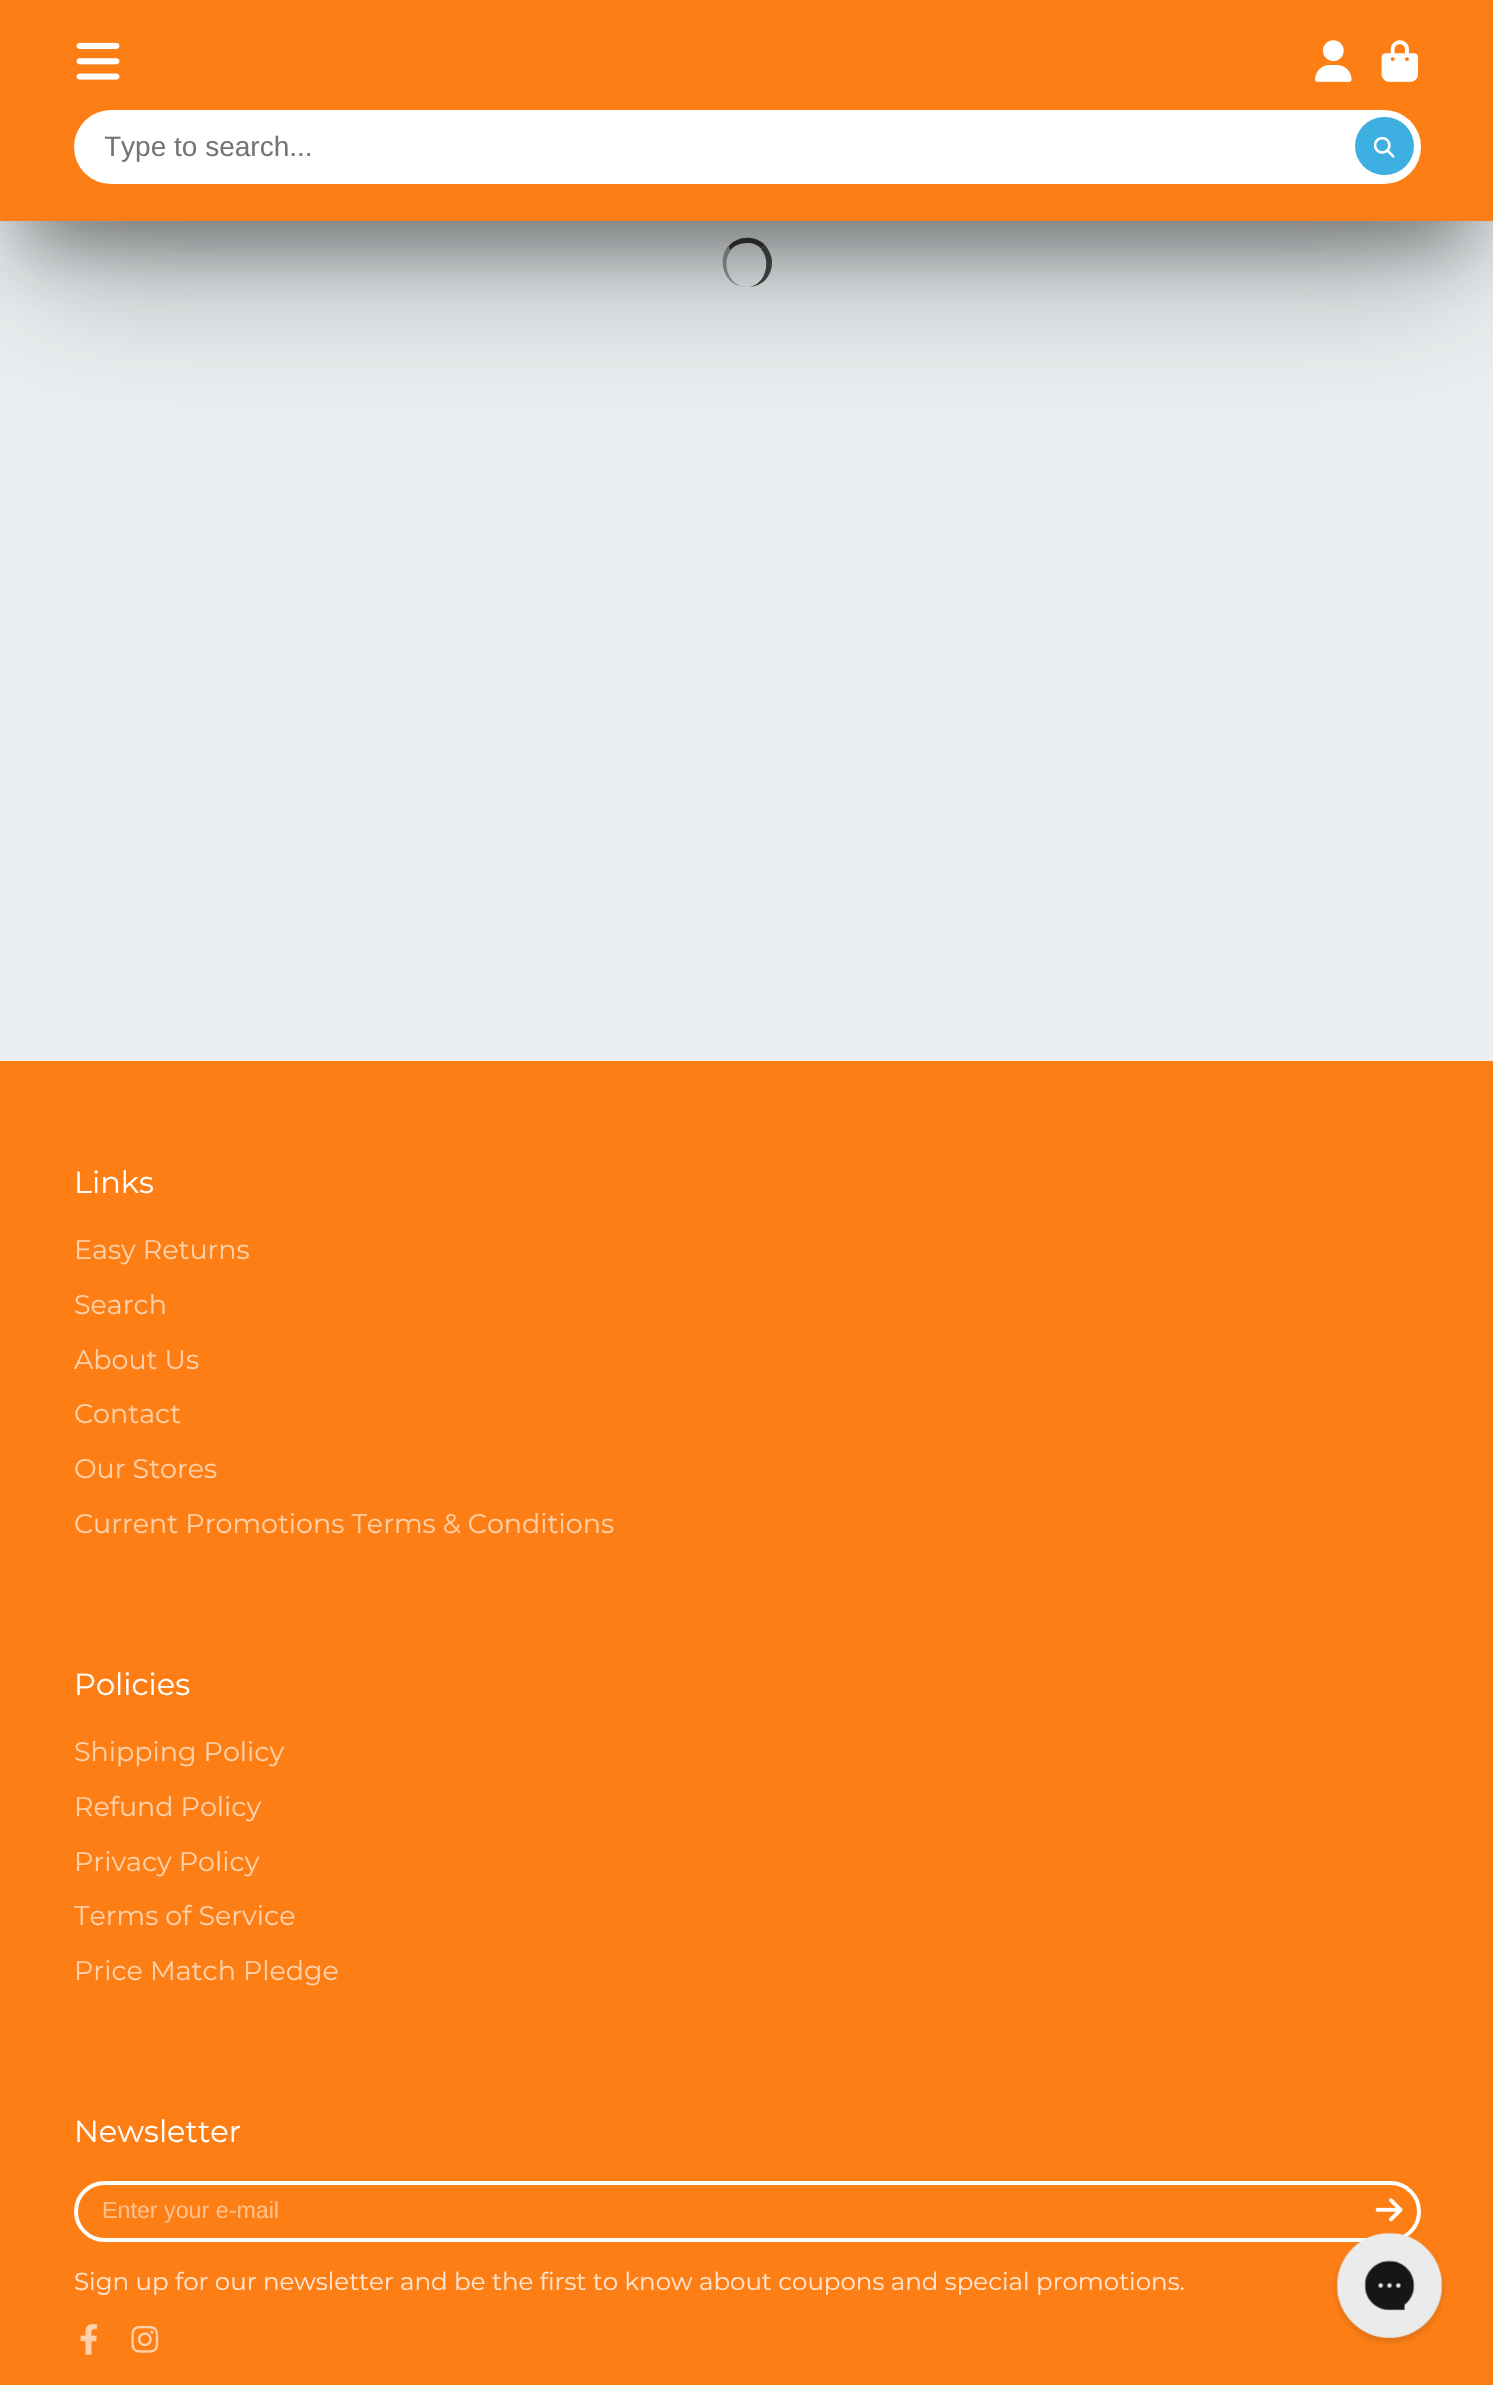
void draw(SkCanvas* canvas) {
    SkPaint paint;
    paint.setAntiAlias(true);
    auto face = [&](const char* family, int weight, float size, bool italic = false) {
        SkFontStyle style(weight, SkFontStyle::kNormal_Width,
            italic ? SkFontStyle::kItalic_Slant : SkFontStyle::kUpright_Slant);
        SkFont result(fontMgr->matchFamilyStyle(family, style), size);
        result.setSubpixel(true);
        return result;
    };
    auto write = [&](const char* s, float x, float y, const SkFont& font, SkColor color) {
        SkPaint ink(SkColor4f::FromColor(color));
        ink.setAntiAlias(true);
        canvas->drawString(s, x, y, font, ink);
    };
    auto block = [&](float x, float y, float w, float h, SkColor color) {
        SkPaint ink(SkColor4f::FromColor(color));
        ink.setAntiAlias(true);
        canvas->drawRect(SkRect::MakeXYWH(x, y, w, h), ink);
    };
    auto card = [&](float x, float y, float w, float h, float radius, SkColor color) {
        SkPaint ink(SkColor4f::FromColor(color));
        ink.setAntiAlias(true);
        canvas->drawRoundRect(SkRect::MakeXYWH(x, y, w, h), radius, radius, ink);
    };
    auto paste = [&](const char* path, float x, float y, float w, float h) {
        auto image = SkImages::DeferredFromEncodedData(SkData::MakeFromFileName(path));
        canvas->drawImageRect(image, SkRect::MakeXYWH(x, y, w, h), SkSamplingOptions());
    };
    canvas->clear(SkColorSetRGB(235, 239, 241));
    paint.setColor(SkColorSetRGB(51, 51, 51));
    canvas->drawPath(SkPathBuilder().moveTo(747, 243).cubicTo(739.5f, 243, 734, 246, 730.5f, 250).lineTo(728.5f, 246.5f).cubicTo(737, 235.5f, 755, 235, 765, 245).lineTo(761, 248.5f).cubicTo(758, 245, 753.5f, 243, 747, 243).close().detach(), paint);
    paint.setColor(SkColorSetARGB(230, 51, 51, 51));
    canvas->drawPath(SkPathBuilder().moveTo(772, 262).cubicTo(772, 275, 764, 287, 747, 287).cubicTo(765, 287, 772, 261, 761, 249).lineTo(765, 245).cubicTo(769, 250, 772, 256, 772, 262).close().detach(), paint);
    paint.setColor(SkColorSetARGB(115, 51, 51, 51));
    canvas->drawPath(SkPathBuilder().moveTo(728, 246).cubicTo(717, 260, 723, 287, 747, 287).cubicTo(728, 287, 721, 262, 731, 250).close().detach(), paint);
    paint.setColor(SkColorSetARGB(102, 10, 10, 10));
    paint.setMaskFilter(SkMaskFilter::MakeBlur(kNormal_SkBlurStyle, 33.5f));
    canvas->drawRect(SkRect::MakeXYWH(25, 70, 1445, 172), paint);
    paint.setMaskFilter(nullptr);
    paint.setColor(SkColorSetARGB(77, 10, 10, 10));
    paint.setMaskFilter(SkMaskFilter::MakeBlur(kNormal_SkBlurStyle, 76.5f));
    canvas->drawRect(SkRect::MakeXYWH(25, 102, 1445, 171), paint);
    paint.setMaskFilter(nullptr);
    block(0, 0, 1493, 221, SkColorSetRGB(253, 126, 20));
    paste("pic1.png", 76, 42, 44, 38);
    paste("pic2.png", 1315, 40, 37, 42);
    paste("pic3.png", 1381, 40, 38, 42);
    card(74, 110, 1347, 74, 37, SK_ColorWHITE);
    canvas->save();
    canvas->clipRect(SkRect::MakeXYWH(105, 131, 1286, 32));
    auto kFont1 = face("Liberation Sans", 400, 28);
    write("Type to search...", 104, 156, kFont1, SkColorSetRGB(117, 117, 117));
    canvas->restore();
    card(1355, 117, 59, 58, 29, SkColorSetRGB(62, 175, 225));
    paste("pic4.png", 1374, 137, 21, 21);
    block(0, 1061, 1493, 1324, SkColorSetRGB(253, 126, 20));
    auto kFont2 = face("Montserrat", 400, 30.5f);
    write("Links", 74, 1193, kFont2, SK_ColorWHITE);
    auto kFont3 = face("Montserrat", 400, 26.95f);
    write("Easy Returns", 74, 1259, kFont3, SkColorSetRGB(254, 209, 170));
    write("Search", 74, 1314, kFont3, SkColorSetRGB(254, 209, 170));
    write("About Us", 74, 1369, kFont3, SkColorSetRGB(254, 209, 170));
    write("Contact", 74, 1423, kFont3, SkColorSetRGB(254, 209, 170));
    write("Our Stores", 74, 1478, kFont3, SkColorSetRGB(254, 209, 170));
    write("Current Promotions Terms & Conditions", 74, 1533, kFont3, SkColorSetRGB(254, 209, 170));
    write("Policies", 74, 1695, kFont2, SK_ColorWHITE);
    write("Shipping Policy", 74, 1761, kFont3, SkColorSetRGB(254, 209, 170));
    write("Refund Policy", 74, 1816, kFont3, SkColorSetRGB(254, 209, 170));
    write("Privacy Policy", 74, 1871, kFont3, SkColorSetRGB(254, 209, 170));
    write("Terms of Service", 74, 1925, kFont3, SkColorSetRGB(254, 209, 170));
    write("Price Match Pledge", 74, 1980, kFont3, SkColorSetRGB(254, 209, 170));
    write("Newsletter", 74, 2142, kFont2, SK_ColorWHITE);
    paint.setStyle(SkPaint::kStroke_Style);
    paint.setStrokeWidth(4);
    paint.setColor(SK_ColorWHITE);
    canvas->drawRoundRect(SkRect::MakeXYWH(76, 2183, 1343, 57), 28.5f, 28.5f, paint);
    auto kFont4 = face("Liberation Sans", 400, 23.25f);
    write("Enter your e-mail", 102, 2218, kFont4, SkColorSetRGB(254, 191, 138));
    paste("pic5.png", 1375, 2198, 28, 24);
    auto kFont5 = face("Montserrat", 400, 24.5f);
    write("Sign up for our newsletter and be the first to know about coupons and special promotions.", 74, 2290, kFont5, SkColorSetRGB(255, 229, 208));
    paste("pic6.png", 80, 2324, 17, 31);
    paste("pic7.png", 131, 2325, 28, 28);
    paste("pic8.png", 1333, 2232, 113, 113);
}
